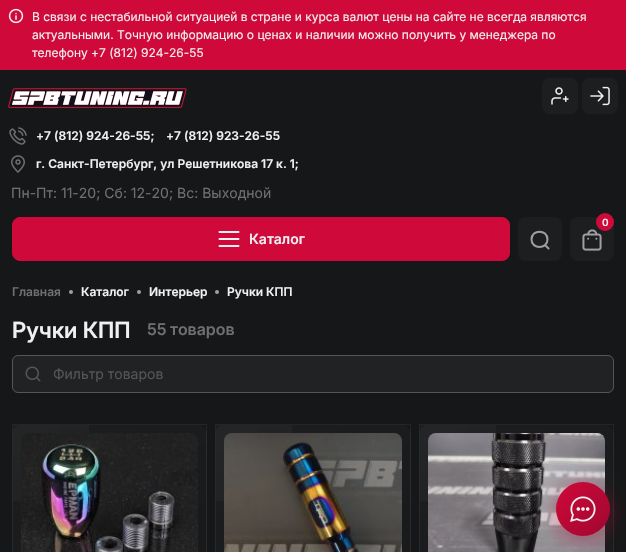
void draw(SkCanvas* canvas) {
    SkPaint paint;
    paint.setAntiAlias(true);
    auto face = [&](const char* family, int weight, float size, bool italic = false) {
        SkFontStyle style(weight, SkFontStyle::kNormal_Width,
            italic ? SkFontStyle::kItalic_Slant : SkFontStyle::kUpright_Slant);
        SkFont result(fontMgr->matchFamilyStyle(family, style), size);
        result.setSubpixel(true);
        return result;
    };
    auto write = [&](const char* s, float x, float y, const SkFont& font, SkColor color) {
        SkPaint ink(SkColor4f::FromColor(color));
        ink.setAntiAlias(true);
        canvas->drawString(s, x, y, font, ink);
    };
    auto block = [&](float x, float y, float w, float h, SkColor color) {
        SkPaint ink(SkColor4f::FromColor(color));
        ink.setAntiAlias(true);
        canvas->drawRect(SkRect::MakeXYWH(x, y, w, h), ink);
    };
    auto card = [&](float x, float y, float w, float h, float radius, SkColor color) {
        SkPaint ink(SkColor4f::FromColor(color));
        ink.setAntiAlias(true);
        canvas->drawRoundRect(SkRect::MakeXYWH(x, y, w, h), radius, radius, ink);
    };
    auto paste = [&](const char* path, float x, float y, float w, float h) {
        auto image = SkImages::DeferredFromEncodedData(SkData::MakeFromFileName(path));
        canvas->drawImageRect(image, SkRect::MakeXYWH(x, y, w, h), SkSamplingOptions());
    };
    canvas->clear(SkColorSetRGB(21, 23, 24));
    block(0, 0, 626, 70, SkColorSetRGB(207, 9, 57));
    paste("pic1.png", 8, 8, 16, 16);
    auto kFont1 = face("Inter", 400, 12);
    write("В связи с нестабильной ситуацией в стране и курса валют цены на сайте не всегда являются", 32, 21, kFont1, SkColorSetRGB(240, 240, 240));
    write("актуальными. Точную информацию о ценах и наличии можно получить у менеджера по", 32, 39, kFont1, SkColorSetRGB(240, 240, 240));
    write("телефону +7 (812) 924-26-55", 32, 57, kFont1, SkColorSetRGB(240, 240, 240));
    paste("pic2.png", 8, 88, 179, 20);
    card(542, 78, 36, 36, 8, SkColorSetRGB(28, 30, 31));
    paste("pic3.png", 551, 87, 18, 18);
    card(582, 78, 36, 36, 8, SkColorSetRGB(28, 30, 31));
    paste("pic4.png", 590, 86, 20, 20);
    paste("pic5.png", 9, 127, 18, 18);
    auto kFont2 = face("Inter", 600, 12);
    write("+7 (812) 924-26-55;", 36, 140, kFont2, SkColorSetRGB(240, 240, 240));
    write("+7 (812) 923-26-55", 166, 140, kFont2, SkColorSetRGB(240, 240, 240));
    paste("pic6.png", 11, 155, 14, 18);
    write("г. Санкт-Петербург, ул Решетникова 17 к. 1;", 36, 168, kFont2, SkColorSetRGB(240, 240, 240));
    auto kFont3 = face("Inter", 400, 14);
    write("Пн-Пт: 11-20; Сб: 12-20; Вс: Выходной", 11, 198, kFont3, SkColorSetRGB(110, 111, 112));
    card(518, 217, 44, 44, 8, SkColorSetRGB(28, 30, 31));
    paint.setStyle(SkPaint::kStroke_Style);
    paint.setStrokeWidth(2);
    paint.setStrokeCap(SkPaint::kRound_Cap);
    paint.setColor(SkColorSetRGB(158, 159, 160));
    canvas->drawPath(SkPathBuilder().moveTo(545, 245).lineTo(548.5f, 248.5f).moveTo(547.5f, 239.5f).cubicTo(547.5f, 249.5f, 531.5f, 249.5f, 531.5f, 239.5f).cubicTo(531.5f, 229, 547.5f, 229, 547.5f, 239.5f).close().detach(), paint);
    card(570, 217, 44, 44, 8, SkColorSetRGB(28, 30, 31));
    paste("pic7.png", 582, 229, 20, 22);
    paint.setStyle(SkPaint::kFill_Style);
    paint.setColor(SkColorSetRGB(207, 9, 57));
    canvas->drawCircle(605, 222, 9, paint);
    auto kFont4 = face("Inter", 600, 10);
    write("0", 602, 226, kFont4, SkColorSetRGB(240, 240, 240));
    canvas->drawRoundRect(SkRect::MakeXYWH(12.5f, 217.5f, 497, 43), 7.5f, 7.5f, paint);
    paint.setStyle(SkPaint::kStroke_Style);
    paint.setStrokeWidth(1);
    paint.setStrokeCap(SkPaint::kButt_Cap);
    canvas->drawRoundRect(SkRect::MakeXYWH(12.5f, 217.5f, 497, 43), 7.5f, 7.5f, paint);
    paint.setStrokeWidth(2);
    paint.setStrokeCap(SkPaint::kRound_Cap);
    paint.setColor(SkColorSetRGB(240, 240, 240));
    canvas->drawPath(SkPathBuilder().moveTo(238.5f, 246).lineTo(219.5f, 246).moveTo(238.5f, 239).lineTo(219.5f, 239).moveTo(238.5f, 232).lineTo(219.5f, 232).detach(), paint);
    auto kFont5 = face("Inter", 600, 14);
    write("Каталог", 249, 244, kFont5, SkColorSetRGB(240, 240, 240));
    write("Главная", 12, 296, kFont2, SkColorSetRGB(110, 111, 112));
    paint.setStyle(SkPaint::kFill_Style);
    paint.setColor(SkColorSetRGB(158, 159, 160));
    canvas->drawCircle(71, 292, 2, paint);
    write("Каталог", 81, 296, kFont2, SkColorSetRGB(240, 240, 240));
    canvas->drawCircle(139, 292, 2, paint);
    write("Интерьер", 149, 296, kFont2, SkColorSetRGB(240, 240, 240));
    canvas->drawCircle(217, 292, 2, paint);
    write("Ручки КПП", 227, 296, kFont2, SkColorSetRGB(240, 240, 240));
    auto kFont6 = face("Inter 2", 600, 22.25f);
    write("Ручки КПП", 12, 338, kFont6, SkColorSetRGB(240, 240, 240));
    auto kFont7 = face("Inter", 600, 16);
    write("55", 147, 335, kFont7, SkColorSetRGB(110, 111, 112));
    auto kFont8 = face("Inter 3", 600, 16);
    write("товаров", 170, 335, kFont8, SkColorSetRGB(110, 111, 112));
    paint.setColor(SkColorSetRGB(32, 34, 35));
    canvas->drawRoundRect(SkRect::MakeXYWH(12.5f, 355.5f, 601, 37), 5.5f, 5.5f, paint);
    paint.setStyle(SkPaint::kStroke_Style);
    paint.setStrokeWidth(1);
    paint.setStrokeCap(SkPaint::kButt_Cap);
    paint.setColor(SkColorSetRGB(85, 85, 88));
    canvas->drawRoundRect(SkRect::MakeXYWH(12.5f, 355.5f, 601, 37), 5.5f, 5.5f, paint);
    paste("pic8.png", 25, 366, 16, 16);
    write("Фильтр товаров", 53, 379, kFont3, SkColorSetRGB(85, 85, 88));
    canvas->save();
    canvas->clipPath(SkPathBuilder().moveTo(24, 424).lineTo(195, 424).cubicTo(201.5f, 424, 207, 429.5f, 207, 436).lineTo(207, 764).cubicTo(207, 770.5f, 201.5f, 776, 195, 776).lineTo(24, 776).cubicTo(17.5f, 776, 12, 770.5f, 12, 764).lineTo(12, 436).cubicTo(12, 429.5f, 17.5f, 424, 24, 424).close().detach(), true);
    paint.setStyle(SkPaint::kFill_Style);
    {
        const SkColor colors[] = {SkColorSetRGB(28, 30, 31), SkColorSetRGB(20, 22, 23)};
        const float stops[] = {0, 1};
        const SkPoint ends[] = {{-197, 437}, {30, 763}};
        paint.setShader(SkGradientShader::MakeLinear(ends, colors, stops, 2, SkTileMode::kClamp));
        paint.setAlpha(255);
    }
    canvas->drawRect(SkRect::MakeXYWH(12, 425, 1, 127), paint);
    {
        const SkColor colors[] = {SkColorSetRGB(28, 30, 31), SkColorSetRGB(20, 22, 23)};
        const float stops[] = {0, 1};
        const SkPoint ends[] = {{-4.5f, 437}, {223, 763}};
        paint.setShader(SkGradientShader::MakeLinear(ends, colors, stops, 2, SkTileMode::kClamp));
        paint.setAlpha(255);
    }
    canvas->drawRect(SkRect::MakeXYWH(13, 425, 193, 127), paint);
    {
        const SkColor colors[] = {SkColorSetRGB(28, 30, 31), SkColorSetRGB(20, 22, 23)};
        const float stops[] = {0, 1};
        const SkPoint ends[] = {{189, 437}, {416, 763}};
        paint.setShader(SkGradientShader::MakeLinear(ends, colors, stops, 2, SkTileMode::kClamp));
        paint.setAlpha(255);
    }
    canvas->drawRect(SkRect::MakeXYWH(206, 425, 1, 127), paint);
    canvas->restore();
    paint.setStyle(SkPaint::kStroke_Style);
    paint.setShader(nullptr);
    paint.setColor(SkColorSetARGB(15, 255, 255, 255));
    canvas->drawRect(SkRect::MakeXYWH(12.5f, 424.5f, 194, 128), paint);
    paint.setStyle(SkPaint::kFill_Style);
    {
        const SkColor colors[] = {SkColorSetARGB(8, 255, 255, 255), SkColorSetARGB(0, 255, 255, 255)};
        const float stops[] = {0, 0.5f};
        const SkPoint ends[] = {{-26, 464}, {245, 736}};
        paint.setShader(SkGradientShader::MakeLinear(ends, colors, stops, 2, SkTileMode::kClamp));
        paint.setAlpha(255);
    }
    canvas->drawRect(SkRect::MakeXYWH(13, 425, 76, 76), paint);
    paste("pic9.png", 21, 433, 177, 119);
    canvas->save();
    canvas->clipPath(SkPathBuilder().moveTo(227, 424).lineTo(399, 424).cubicTo(405.5f, 424, 411, 429.5f, 411, 436).lineTo(411, 764).cubicTo(411, 770.5f, 405.5f, 776, 399, 776).lineTo(227, 776).cubicTo(220.5f, 776, 215, 770.5f, 215, 764).lineTo(215, 436).cubicTo(215, 429.5f, 220.5f, 424, 227, 424).close().detach(), true);
    {
        const SkColor colors[] = {SkColorSetRGB(28, 30, 31), SkColorSetRGB(20, 22, 23)};
        const float stops[] = {0, 1};
        const SkPoint ends[] = {{4.9f, 437}, {233, 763}};
        paint.setShader(SkGradientShader::MakeLinear(ends, colors, stops, 2, SkTileMode::kClamp));
        paint.setAlpha(255);
    }
    canvas->drawRect(SkRect::MakeXYWH(215, 425, 1, 127), paint);
    {
        const SkColor colors[] = {SkColorSetRGB(28, 30, 31), SkColorSetRGB(20, 22, 23)};
        const float stops[] = {0, 1};
        const SkPoint ends[] = {{199, 437}, {427, 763}};
        paint.setShader(SkGradientShader::MakeLinear(ends, colors, stops, 2, SkTileMode::kClamp));
        paint.setAlpha(255);
    }
    canvas->drawRect(SkRect::MakeXYWH(216, 425, 194, 127), paint);
    {
        const SkColor colors[] = {SkColorSetRGB(28, 30, 31), SkColorSetRGB(20, 22, 23)};
        const float stops[] = {0, 1};
        const SkPoint ends[] = {{393, 437}, {621, 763}};
        paint.setShader(SkGradientShader::MakeLinear(ends, colors, stops, 2, SkTileMode::kClamp));
        paint.setAlpha(255);
    }
    canvas->drawRect(SkRect::MakeXYWH(410, 425, 1, 127), paint);
    canvas->restore();
    paint.setStyle(SkPaint::kStroke_Style);
    paint.setShader(nullptr);
    paint.setColor(SkColorSetARGB(15, 255, 255, 255));
    canvas->drawRect(SkRect::MakeXYWH(215.5f, 424.5f, 195, 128), paint);
    paint.setStyle(SkPaint::kFill_Style);
    {
        const SkColor colors[] = {SkColorSetARGB(8, 255, 255, 255), SkColorSetARGB(0, 255, 255, 255)};
        const float stops[] = {0, 0.5f};
        const SkPoint ends[] = {{177, 464}, {449, 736}};
        paint.setShader(SkGradientShader::MakeLinear(ends, colors, stops, 2, SkTileMode::kClamp));
        paint.setAlpha(255);
    }
    canvas->drawRect(SkRect::MakeXYWH(216, 425, 76, 76), paint);
    paste("pic10.png", 224, 433, 178, 119);
    canvas->save();
    canvas->clipPath(SkPathBuilder().moveTo(431, 424).lineTo(602, 424).cubicTo(608.5f, 424, 614, 429.5f, 614, 436).lineTo(614, 764).cubicTo(614, 770.5f, 608.5f, 776, 602, 776).lineTo(431, 776).cubicTo(424.5f, 776, 419, 770.5f, 419, 764).lineTo(419, 436).cubicTo(419, 429.5f, 424.5f, 424, 431, 424).close().detach(), true);
    {
        const SkColor colors[] = {SkColorSetRGB(28, 30, 31), SkColorSetRGB(20, 22, 23)};
        const float stops[] = {0, 1};
        const SkPoint ends[] = {{210, 437}, {437, 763}};
        paint.setShader(SkGradientShader::MakeLinear(ends, colors, stops, 2, SkTileMode::kClamp));
        paint.setAlpha(255);
    }
    canvas->drawRect(SkRect::MakeXYWH(419, 425, 1, 127), paint);
    {
        const SkColor colors[] = {SkColorSetRGB(28, 30, 31), SkColorSetRGB(20, 22, 23)};
        const float stops[] = {0, 1};
        const SkPoint ends[] = {{403, 437}, {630, 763}};
        paint.setShader(SkGradientShader::MakeLinear(ends, colors, stops, 2, SkTileMode::kClamp));
        paint.setAlpha(255);
    }
    canvas->drawRect(SkRect::MakeXYWH(420, 425, 193, 127), paint);
    {
        const SkColor colors[] = {SkColorSetRGB(28, 30, 31), SkColorSetRGB(20, 22, 23)};
        const float stops[] = {0, 1};
        const SkPoint ends[] = {{596, 437}, {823, 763}};
        paint.setShader(SkGradientShader::MakeLinear(ends, colors, stops, 2, SkTileMode::kClamp));
        paint.setAlpha(255);
    }
    canvas->drawRect(SkRect::MakeXYWH(613, 425, 1, 127), paint);
    canvas->restore();
    paint.setStyle(SkPaint::kStroke_Style);
    paint.setShader(nullptr);
    paint.setColor(SkColorSetARGB(15, 255, 255, 255));
    canvas->drawRect(SkRect::MakeXYWH(419.5f, 424.5f, 194, 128), paint);
    paint.setStyle(SkPaint::kFill_Style);
    {
        const SkColor colors[] = {SkColorSetARGB(8, 255, 255, 255), SkColorSetARGB(0, 255, 255, 255)};
        const float stops[] = {0, 0.5f};
        const SkPoint ends[] = {{381, 464}, {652, 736}};
        paint.setShader(SkGradientShader::MakeLinear(ends, colors, stops, 2, SkTileMode::kClamp));
        paint.setAlpha(255);
    }
    canvas->drawRect(SkRect::MakeXYWH(420, 425, 76, 76), paint);
    paste("pic11.png", 428, 433, 177, 119);
    paint.setShader(nullptr);
    paint.setColor(SkColorSetARGB(102, 207, 9, 57));
    paint.setMaskFilter(SkMaskFilter::MakeBlur(kNormal_SkBlurStyle, 10));
    canvas->drawRoundRect(SkRect::MakeXYWH(556, 486, 54, 54), 27, 27, paint);
    paint.setMaskFilter(nullptr);
    {
        const SkColor colors[] = {SkColorSetRGB(207, 9, 57), SkColorSetRGB(160, 7, 48)};
        const float stops[] = {0, 1};
        const SkPoint ends[] = {{556, 482}, {610, 536}};
        paint.setShader(SkGradientShader::MakeLinear(ends, colors, stops, 2, SkTileMode::kClamp));
        paint.setAlpha(255);
    }
    canvas->drawCircle(583, 509, 27, paint);
    paste("pic12.png", 570, 496, 26, 26);
}
